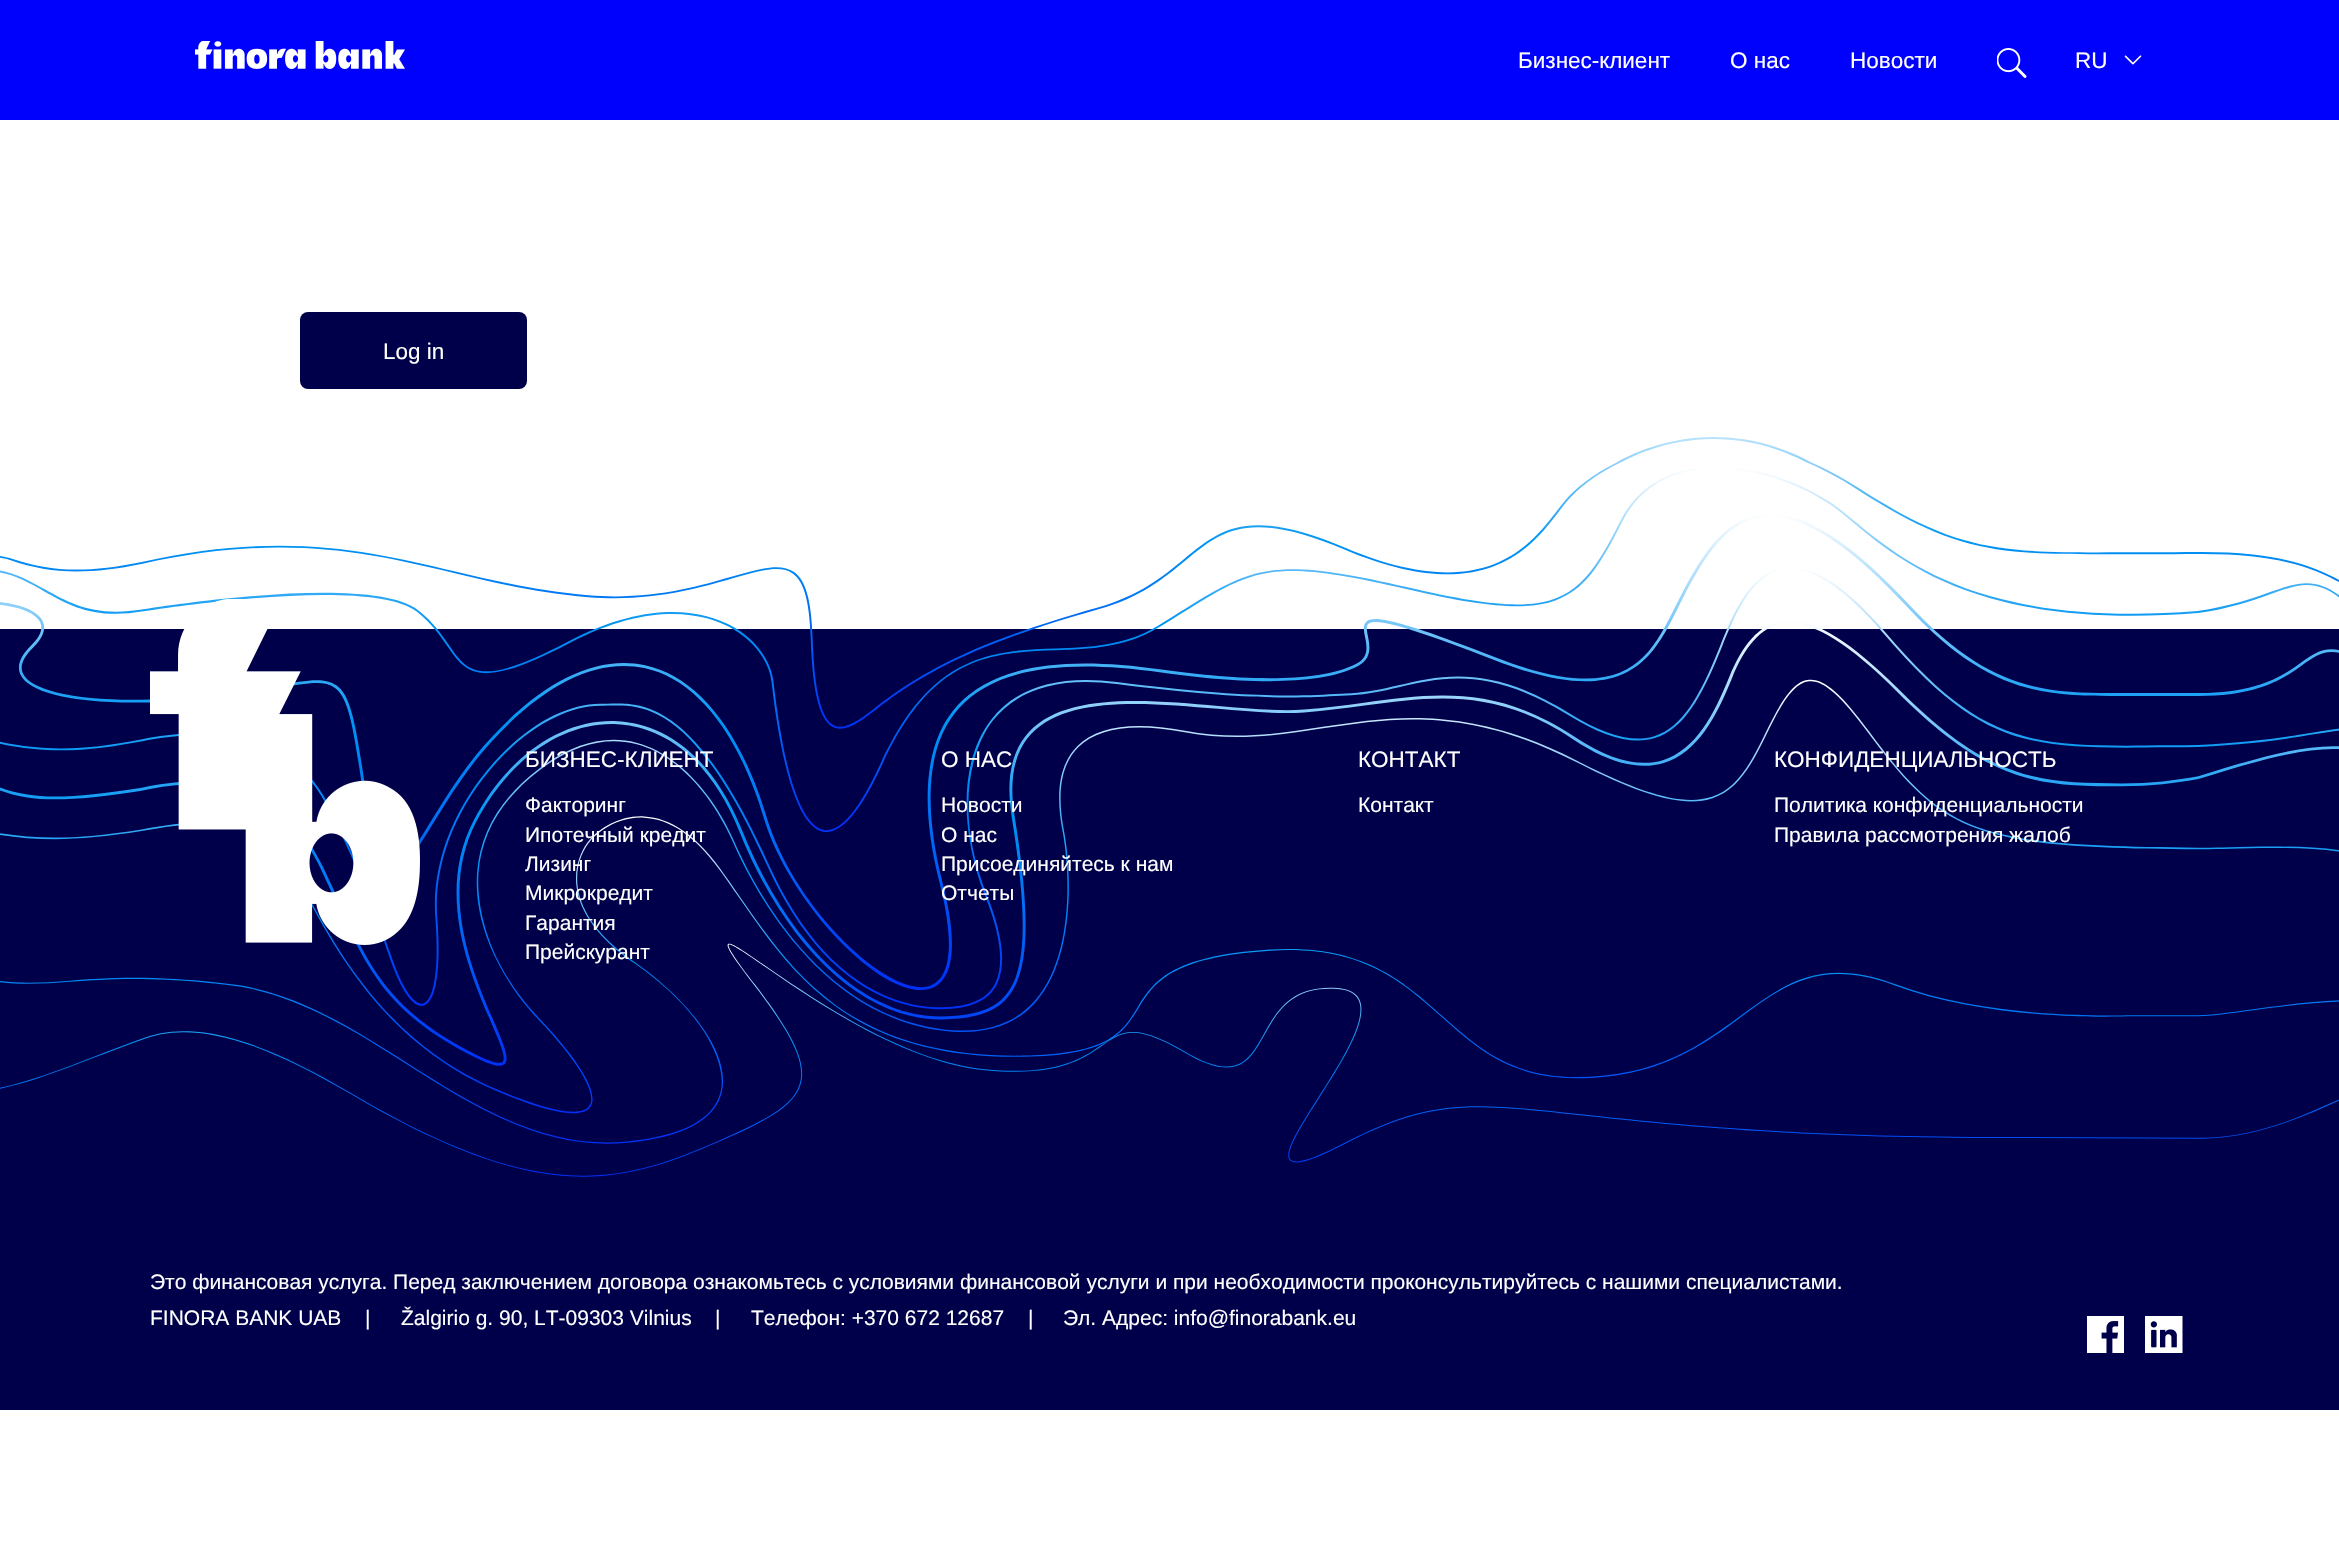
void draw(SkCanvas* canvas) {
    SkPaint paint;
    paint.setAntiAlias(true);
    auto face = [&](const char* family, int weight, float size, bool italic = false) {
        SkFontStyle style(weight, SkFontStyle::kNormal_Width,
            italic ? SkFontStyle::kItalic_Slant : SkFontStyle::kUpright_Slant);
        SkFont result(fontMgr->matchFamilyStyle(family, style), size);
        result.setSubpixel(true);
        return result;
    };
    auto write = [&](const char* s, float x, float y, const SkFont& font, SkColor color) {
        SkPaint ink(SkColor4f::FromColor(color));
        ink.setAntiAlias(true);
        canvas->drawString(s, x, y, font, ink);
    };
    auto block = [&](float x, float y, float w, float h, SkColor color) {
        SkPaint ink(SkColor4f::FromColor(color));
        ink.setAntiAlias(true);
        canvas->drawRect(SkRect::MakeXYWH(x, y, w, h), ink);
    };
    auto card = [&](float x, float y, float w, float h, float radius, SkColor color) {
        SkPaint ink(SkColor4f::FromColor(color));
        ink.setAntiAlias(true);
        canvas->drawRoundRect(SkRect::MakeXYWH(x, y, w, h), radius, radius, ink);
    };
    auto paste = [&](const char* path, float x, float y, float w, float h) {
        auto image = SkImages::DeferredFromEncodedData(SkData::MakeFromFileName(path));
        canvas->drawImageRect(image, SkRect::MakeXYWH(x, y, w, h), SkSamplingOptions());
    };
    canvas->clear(SK_ColorWHITE);
    block(0, 0, 2339, 120, SkColorSetRGB(0, 0, 253));
    paste("pic1.png", 195, 41, 210, 28);
    auto kFont1 = face("Liberation Sans", 400, 22.5f);
    write("Бизнес-клиент", 1518, 68, kFont1, SK_ColorWHITE);
    write("О нас", 1730, 68, kFont1, SK_ColorWHITE);
    write("Новости", 1850, 68, kFont1, SK_ColorWHITE);
    paste("pic2.png", 1997, 48, 30, 30);
    write("RU", 2075, 68, kFont1, SK_ColorWHITE);
    paste("pic3.png", 2124, 55, 18, 10);
    card(300, 312, 227, 77, 8, SkColorSetRGB(0, 0, 74));
    write("Log in", 383, 359, kFont1, SK_ColorWHITE);
    block(0, 629, 2339, 781, SkColorSetRGB(0, 0, 74));
    paste("pic4.png", 0, 437, 2339, 740);
    paste("pic5.png", 150, 599, 270, 346);
    write("БИЗНЕС-КЛИЕНТ", 525, 767, kFont1, SK_ColorWHITE);
    auto kFont2 = face("Liberation Sans", 400, 21);
    write("Факторинг", 525, 812, kFont2, SK_ColorWHITE);
    write("Ипотечный кредит", 525, 842, kFont2, SK_ColorWHITE);
    write("Лизинг", 525, 871, kFont2, SK_ColorWHITE);
    write("Микрокредит", 525, 900, kFont2, SK_ColorWHITE);
    write("Гарантия", 525, 930, kFont2, SK_ColorWHITE);
    write("Прейскурант", 525, 959, kFont2, SK_ColorWHITE);
    write("О НАС", 941, 767, kFont1, SK_ColorWHITE);
    write("Новости", 941, 812, kFont2, SK_ColorWHITE);
    write("О нас", 941, 842, kFont2, SK_ColorWHITE);
    write("Присоединяйтесь к нам", 941, 871, kFont2, SK_ColorWHITE);
    write("Отчеты", 941, 900, kFont2, SK_ColorWHITE);
    write("КОНТАКТ", 1358, 767, kFont1, SK_ColorWHITE);
    write("Контакт", 1358, 812, kFont2, SK_ColorWHITE);
    write("КОНФИДЕНЦИАЛЬНОСТЬ", 1774, 767, kFont1, SK_ColorWHITE);
    write("Политика конфиденциальности", 1774, 812, kFont2, SK_ColorWHITE);
    write("Правила рассмотрения жалоб", 1774, 842, kFont2, SK_ColorWHITE);
    write("Это финансовая услуга. Перед заключением договора ознакомьтесь с условиями финансовой услуги и при необходимости проконсультируйтесь с нашими специалистами.", 150, 1289, kFont2, SK_ColorWHITE);
    write("FINORA BANK UAB", 150, 1325, kFont2, SK_ColorWHITE);
    write("|", 365, 1325, kFont2, SK_ColorWHITE);
    write("Žalgirio g. 90, LT-09303 Vilnius", 401, 1325, kFont2, SK_ColorWHITE);
    write("|", 715, 1325, kFont2, SK_ColorWHITE);
    write("Телефон: +370 672 12687", 751, 1325, kFont2, SK_ColorWHITE);
    write("|", 1028, 1325, kFont2, SK_ColorWHITE);
    write("Эл. Адрес: info@finorabank.eu", 1063, 1325, kFont2, SK_ColorWHITE);
    paste("pic6.png", 2087, 1316, 37, 37);
    paste("pic7.png", 2145, 1316, 38, 37);
}
